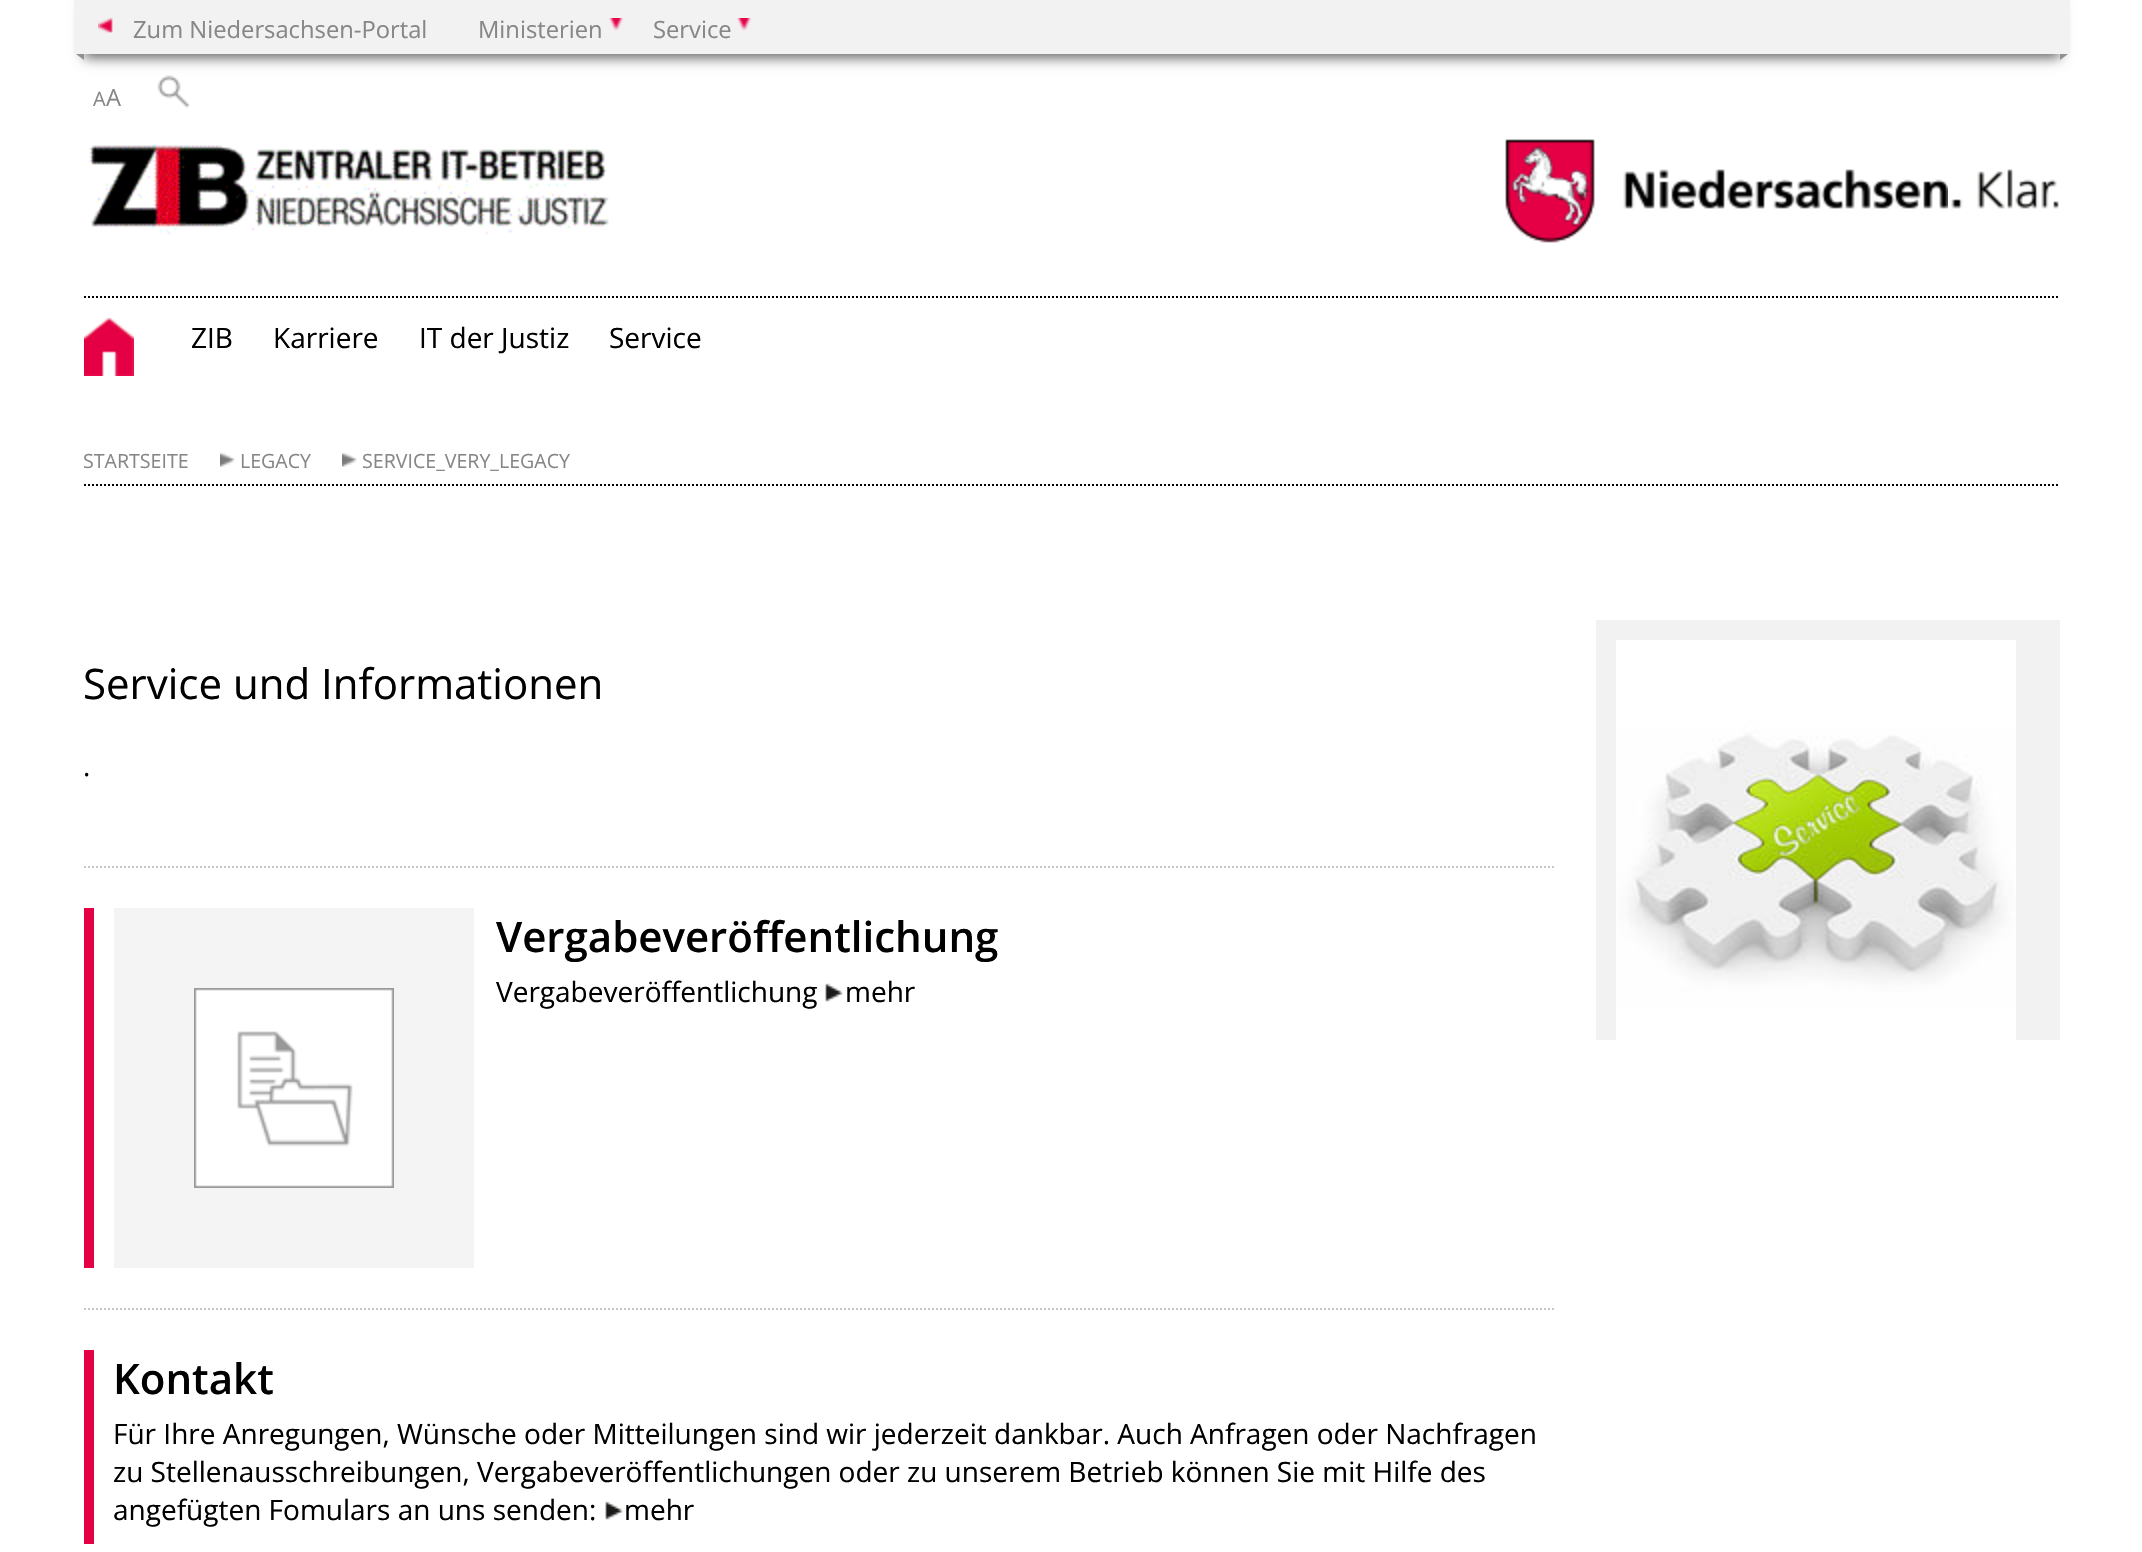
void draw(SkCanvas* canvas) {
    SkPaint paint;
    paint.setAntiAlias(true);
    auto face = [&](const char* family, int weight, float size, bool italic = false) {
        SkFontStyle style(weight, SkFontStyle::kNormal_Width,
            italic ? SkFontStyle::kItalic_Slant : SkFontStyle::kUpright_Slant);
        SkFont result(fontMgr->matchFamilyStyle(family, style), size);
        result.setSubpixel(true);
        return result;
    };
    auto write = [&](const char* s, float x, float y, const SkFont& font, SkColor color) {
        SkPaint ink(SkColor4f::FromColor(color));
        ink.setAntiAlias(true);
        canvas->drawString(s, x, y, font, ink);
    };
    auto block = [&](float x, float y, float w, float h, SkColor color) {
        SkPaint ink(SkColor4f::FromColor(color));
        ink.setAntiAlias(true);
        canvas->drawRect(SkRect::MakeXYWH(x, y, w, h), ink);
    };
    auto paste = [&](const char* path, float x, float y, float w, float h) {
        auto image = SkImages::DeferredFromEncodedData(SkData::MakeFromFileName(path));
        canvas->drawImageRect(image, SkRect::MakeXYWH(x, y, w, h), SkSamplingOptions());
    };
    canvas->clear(SK_ColorWHITE);
    paste("pic3.png", 157, 75, 33, 34);
    paint.setColor(SkColorSetRGB(102, 102, 102));
    paint.setMaskFilter(SkMaskFilter::MakeBlur(kNormal_SkBlurStyle, 6));
    canvas->drawRect(SkRect::MakeXYWH(84, 4, 1976, 54), paint);
    paint.setMaskFilter(nullptr);
    block(74, 0, 1996, 54, SkColorSetRGB(242, 242, 242));
    paste("pic1.png", 98, 18, 15, 15);
    auto kFont1 = face("Open Sans", 400, 23.75f);
    write("Zum Niedersachsen-Portal", 133, 38, kFont1, SkColorSetRGB(135, 135, 135));
    write("Ministerien", 478, 38, kFont1, SkColorSetRGB(135, 135, 135));
    paste("pic2.png", 609, 18, 14, 13);
    write("Service", 653, 38, kFont1, SkColorSetRGB(135, 135, 135));
    paste("pic2.png", 737, 18, 14, 13);
    paint.setColor(SkColorSetRGB(144, 144, 143));
    canvas->drawPath(SkPathBuilder().moveTo(84, 54).lineTo(84, 60).lineTo(76, 54).close().detach(), paint);
    canvas->drawPath(SkPathBuilder().moveTo(2060, 60).lineTo(2060, 54).lineTo(2068, 54).close().detach(), paint);
    auto kFont2 = face("Open Sans", 400, 20);
    write("A", 93, 106, kFont2, SkColorSetRGB(135, 135, 135));
    write("A", 106, 106, kFont1, SkColorSetRGB(135, 135, 135));
    paste("pic4.png", 89, 143, 520, 92);
    paste("pic5.png", 1505, 139, 443, 104);
    paste("pic6.png", 1951, 169, 108, 40);
    paint.setStyle(SkPaint::kStroke_Style);
    paint.setStrokeWidth(2);
    paint.setColor(SK_ColorBLACK);
    paint.setPathEffect(SkDashPathEffect::Make({{2, 2}}, 0));
    canvas->drawPath(SkPathBuilder().moveTo(84, 297).lineTo(2060, 297).detach(), paint);
    paint.setPathEffect(nullptr);
    paste("pic7.png", 84, 318, 50, 58);
    auto kFont3 = face("Open Sans", 400, 28);
    write("ZIB", 191, 348, kFont3, SK_ColorBLACK);
    write("Karriere", 273, 348, kFont3, SK_ColorBLACK);
    write("IT der Justiz", 419, 348, kFont3, SK_ColorBLACK);
    write("Service", 609, 348, kFont3, SK_ColorBLACK);
    paint.setPathEffect(SkDashPathEffect::Make({{2, 2}}, 0));
    canvas->drawPath(SkPathBuilder().moveTo(84, 485).lineTo(2060, 485).detach(), paint);
    paint.setPathEffect(nullptr);
    auto kFont4 = face("Open Sans", 400, 19.6f);
    write("STARTSEITE", 83, 468, kFont4, SkColorSetRGB(135, 135, 135));
    paste("pic8.png", 220, 452, 15, 15);
    write("LEGACY", 240, 468, kFont4, SkColorSetRGB(135, 135, 135));
    paste("pic8.png", 342, 452, 15, 15);
    write("SERVICE_VERY_LEGACY", 362, 468, kFont4, SkColorSetRGB(135, 135, 135));
    auto kFont5 = face("Open Sans", 400, 42);
    write("Service und Informationen", 83, 699, kFont5, SK_ColorBLACK);
    write(".", 83, 776, kFont3, SK_ColorBLACK);
    paint.setColor(SkColorSetRGB(198, 198, 198));
    paint.setPathEffect(SkDashPathEffect::Make({{2, 2}}, 0));
    canvas->drawPath(SkPathBuilder().moveTo(84, 867).lineTo(1556, 867).detach(), paint);
    paint.setPathEffect(nullptr);
    block(84, 908, 10, 360, SkColorSetRGB(229, 0, 70));
    block(114, 908, 360, 360, SkColorSetRGB(244, 244, 244));
    paste("pic9.png", 194, 988, 200, 200);
    auto kFont6 = face("Open Sans", 600, 42);
    write("Vergabeveröffentlichung", 496, 952, kFont6, SK_ColorBLACK);
    write("Vergabeveröffentlichung", 496, 1002, kFont3, SK_ColorBLACK);
    paste("pic10.png", 825, 983, 18, 19);
    write("mehr", 845, 1002, kFont3, SK_ColorBLACK);
    paint.setPathEffect(SkDashPathEffect::Make({{2, 2}}, 0));
    canvas->drawPath(SkPathBuilder().moveTo(84, 1309).lineTo(1556, 1309).detach(), paint);
    paint.setPathEffect(nullptr);
    block(84, 1350, 10, 194, SkColorSetRGB(229, 0, 70));
    write("Kontakt", 113, 1394, kFont6, SK_ColorBLACK);
    write("Für Ihre Anregungen, Wünsche oder Mitteilungen sind wir jederzeit dankbar. Auch Anfragen oder Nachfragen", 113, 1444, kFont3, SK_ColorBLACK);
    write("zu Stellenausschreibungen, Vergabeveröffentlichungen oder zu unserem Betrieb können Sie mit Hilfe des", 113, 1482, kFont3, SK_ColorBLACK);
    write("angefügten Fomulars an uns senden:", 113, 1520, kFont3, SK_ColorBLACK);
    paste("pic10.png", 605, 1501, 18, 19);
    write("mehr", 624, 1520, kFont3, SK_ColorBLACK);
    block(1596, 620, 464, 420, SkColorSetRGB(242, 242, 242));
    paste("pic11.png", 1616, 640, 400, 400);
}
